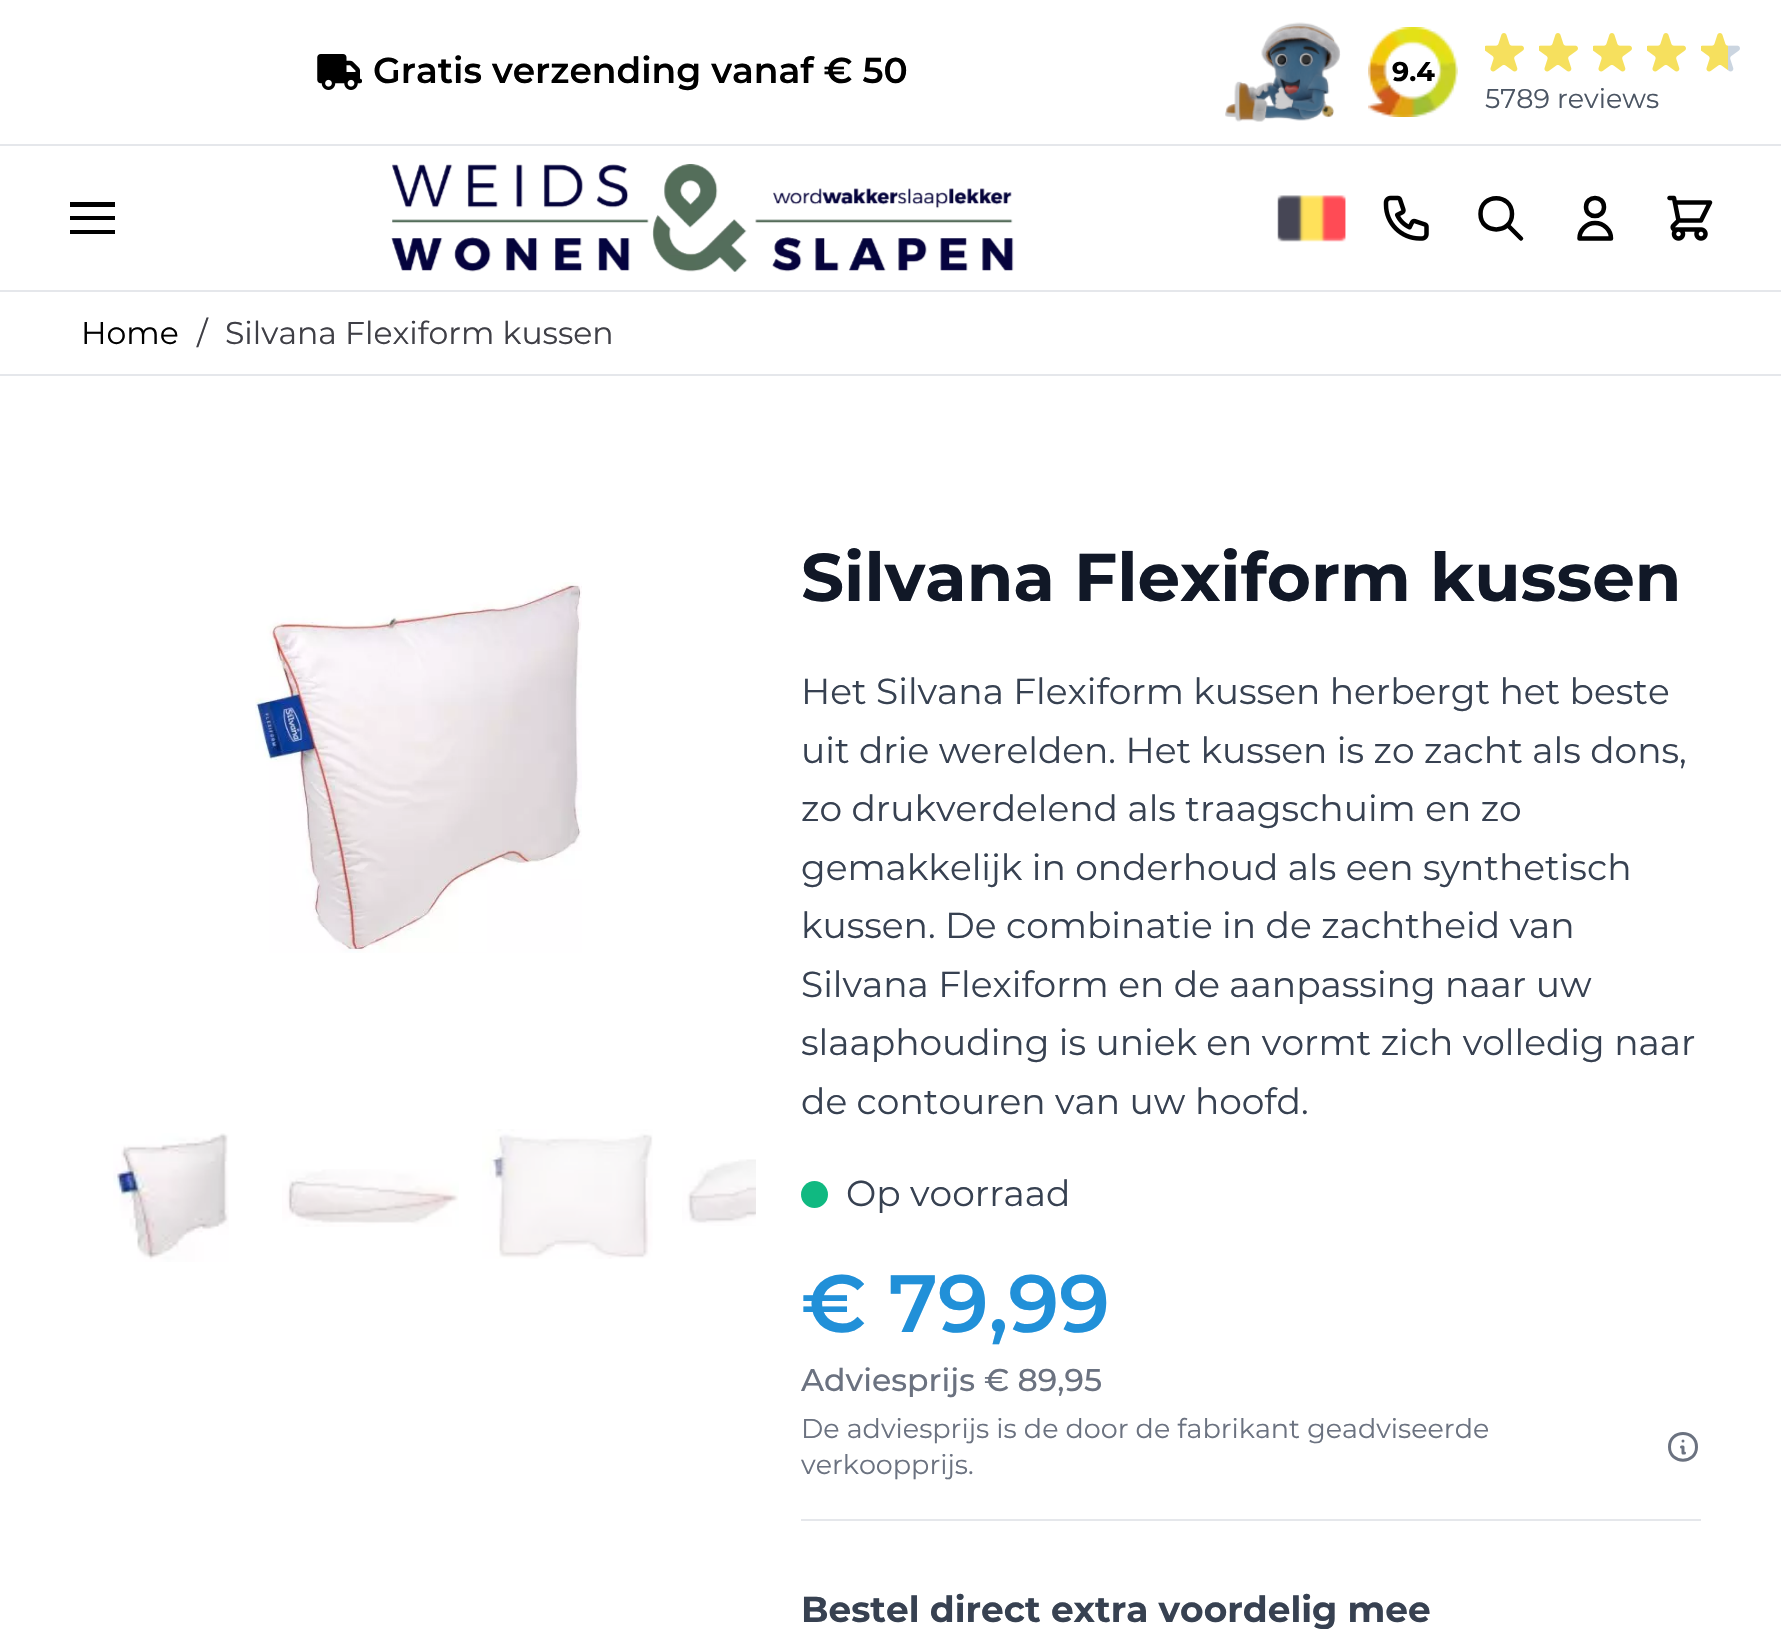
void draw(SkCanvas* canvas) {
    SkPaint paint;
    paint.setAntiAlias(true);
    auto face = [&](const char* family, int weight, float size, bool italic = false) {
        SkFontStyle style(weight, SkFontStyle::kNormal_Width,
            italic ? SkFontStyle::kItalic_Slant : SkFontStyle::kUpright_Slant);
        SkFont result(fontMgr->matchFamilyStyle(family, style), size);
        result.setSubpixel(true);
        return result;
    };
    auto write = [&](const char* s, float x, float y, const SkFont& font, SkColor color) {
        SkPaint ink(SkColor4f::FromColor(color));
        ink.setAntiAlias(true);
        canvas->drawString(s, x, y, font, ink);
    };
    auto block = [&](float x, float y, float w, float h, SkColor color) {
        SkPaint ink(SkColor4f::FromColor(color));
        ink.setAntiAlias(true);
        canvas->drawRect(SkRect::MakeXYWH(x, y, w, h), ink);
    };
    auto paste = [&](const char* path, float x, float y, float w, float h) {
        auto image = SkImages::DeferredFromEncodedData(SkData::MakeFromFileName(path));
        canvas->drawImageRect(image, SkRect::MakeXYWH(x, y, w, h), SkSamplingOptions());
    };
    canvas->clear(SK_ColorWHITE);
    block(0, 144, 1781, 2, SkColorSetRGB(229, 231, 235));
    paste("pic1.png", 317, 54, 45, 36);
    auto kFont1 = face("Montserrat", 600, 36);
    write("Gratis verzending vanaf € 50", 373, 83, kFont1, SK_ColorBLACK);
    paste("pic2.png", 1225, 22, 116, 100);
    auto kFont2 = face("Montserrat", 700, 27);
    write("9.4", 1392, 81, kFont2, SK_ColorBLACK);
    paste("pic3.png", 1368, 27, 90, 90);
    paste("pic4.png", 1485, 33, 39, 39);
    paste("pic4.png", 1539, 33, 39, 39);
    paste("pic4.png", 1593, 33, 39, 39);
    paste("pic4.png", 1647, 33, 39, 39);
    paste("pic5.png", 1701, 33, 39, 39);
    auto kFont3 = face("Montserrat", 400, 27);
    write("5789 reviews", 1485, 108, kFont3, SkColorSetRGB(75, 85, 99));
    block(0, 290, 1781, 2, SkColorSetRGB(229, 231, 235));
    paint.setColor(SK_ColorBLACK);
    canvas->drawPath(SkPathBuilder().moveTo(70, 202).lineTo(115, 202).lineTo(115, 207).lineTo(70, 207).close().moveTo(70, 216).lineTo(115, 216).lineTo(115, 220).lineTo(70, 220).close().moveTo(70, 230).lineTo(115, 230).lineTo(115, 234).lineTo(70, 234).close().detach(), paint);
    paste("pic6.png", 391, 164, 623, 108);
    paste("pic7.png", 1277, 195, 69, 47);
    paste("pic8.png", 1383, 195, 46, 46);
    paint.setStyle(SkPaint::kStroke_Style);
    paint.setStrokeWidth(4.5f);
    paint.setStrokeCap(SkPaint::kRound_Cap);
    paint.setStrokeJoin(SkPaint::kRound_Join);
    canvas->drawPath(SkPathBuilder().moveTo(1521, 238.5f).lineTo(1507.5f, 225).moveTo(1512, 214).cubicTo(1512, 234.5f, 1480.5f, 234.5f, 1480.5f, 214).cubicTo(1480.5f, 193, 1512, 193, 1512, 214).close().detach(), paint);
    canvas->drawPath(SkPathBuilder().moveTo(1604, 207).cubicTo(1604, 219, 1586, 219, 1586, 207).cubicTo(1586, 195, 1604, 195, 1604, 207).close().moveTo(1595, 223).cubicTo(1586.5f, 223, 1579.5f, 230, 1579.5f, 238.5f).lineTo(1611, 238.5f).cubicTo(1611, 230, 1604, 223, 1595, 223).close().detach(), paint);
    paste("pic9.png", 1667, 195, 46, 46);
    block(0, 374, 1781, 2, SkColorSetRGB(229, 231, 235));
    auto kFont4 = face("Montserrat", 400, 31.5f);
    write("Home", 81, 344, kFont4, SK_ColorBLACK);
    write("/", 197, 344, kFont4, SkColorSetRGB(63, 63, 70));
    write("Silvana Flexiform kussen", 225, 344, kFont4, SkColorSetRGB(63, 63, 70));
    paste("pic10.png", 255, 582, 327, 371);
    paste("pic11.png", 113, 1133, 116, 129);
    paste("pic12.png", 282, 1169, 177, 58);
    paste("pic13.png", 482, 1129, 171, 130);
    paste("pic14.png", 682, 1159, 74, 67);
    auto kFont5 = face("Montserrat", 700, 67.5f);
    write("Silvana Flexiform kussen", 801, 601, kFont5, SkColorSetRGB(17, 24, 39));
    auto kFont6 = face("Montserrat", 400, 36);
    write("Het Silvana Flexiform kussen herbergt het beste", 801, 704, kFont6, SkColorSetRGB(55, 65, 81));
    write("uit drie werelden. Het kussen is zo zacht als dons,", 801, 763, kFont6, SkColorSetRGB(55, 65, 81));
    write("zo drukverdelend als traagschuim en zo", 801, 821, kFont6, SkColorSetRGB(55, 65, 81));
    write("gemakkelijk in onderhoud als een synthetisch", 801, 880, kFont6, SkColorSetRGB(55, 65, 81));
    write("kussen. De combinatie in de zachtheid van", 801, 938, kFont6, SkColorSetRGB(55, 65, 81));
    write("Silvana Flexiform en de aanpassing naar uw", 801, 997, kFont6, SkColorSetRGB(55, 65, 81));
    write("slaaphouding is uniek en vormt zich volledig naar", 801, 1055, kFont6, SkColorSetRGB(55, 65, 81));
    write("de contouren van uw hoofd.", 801, 1114, kFont6, SkColorSetRGB(55, 65, 81));
    paint.setStyle(SkPaint::kFill_Style);
    paint.setColor(SkColorSetRGB(16, 185, 129));
    canvas->drawCircle(814.5f, 1194.5f, 13.5f, paint);
    write("Op voorraad", 846, 1206, kFont6, SkColorSetRGB(55, 65, 81));
    block(801, 1519, 900, 2, SkColorSetRGB(229, 231, 235));
    auto kFont7 = face("Montserrat", 600, 81);
    write("€ 79,99", 801, 1332, kFont7, SkColorSetRGB(33, 144, 216));
    auto kFont8 = face("Montserrat", 500, 31.5f);
    write("Adviesprijs", 801, 1391, kFont8, SkColorSetRGB(107, 114, 128));
    write("€ 89,95", 984, 1391, kFont8, SkColorSetRGB(107, 114, 128));
    write("De adviesprijs is de door de fabrikant geadviseerde", 801, 1438, kFont3, SkColorSetRGB(107, 114, 128));
    paint.setStyle(SkPaint::kStroke_Style);
    paint.setStrokeWidth(3);
    paint.setColor(SkColorSetRGB(107, 114, 128));
    canvas->drawPath(SkPathBuilder().moveTo(1684.5f, 1453).lineTo(1683, 1453).lineTo(1683, 1447).lineTo(1681.5f, 1447).moveTo(1683, 1441).lineTo(1683, 1441).moveTo(1696.5f, 1447).cubicTo(1696.5f, 1464.5f, 1669.5f, 1464.5f, 1669.5f, 1447).cubicTo(1669.5f, 1429, 1696.5f, 1429, 1696.5f, 1447).close().detach(), paint);
    write("verkoopprijs.", 801, 1474, kFont3, SkColorSetRGB(107, 114, 128));
    auto kFont9 = face("Montserrat", 700, 36);
    write("Bestel direct extra voordelig mee", 801, 1622, kFont9, SkColorSetRGB(55, 65, 81));
}
